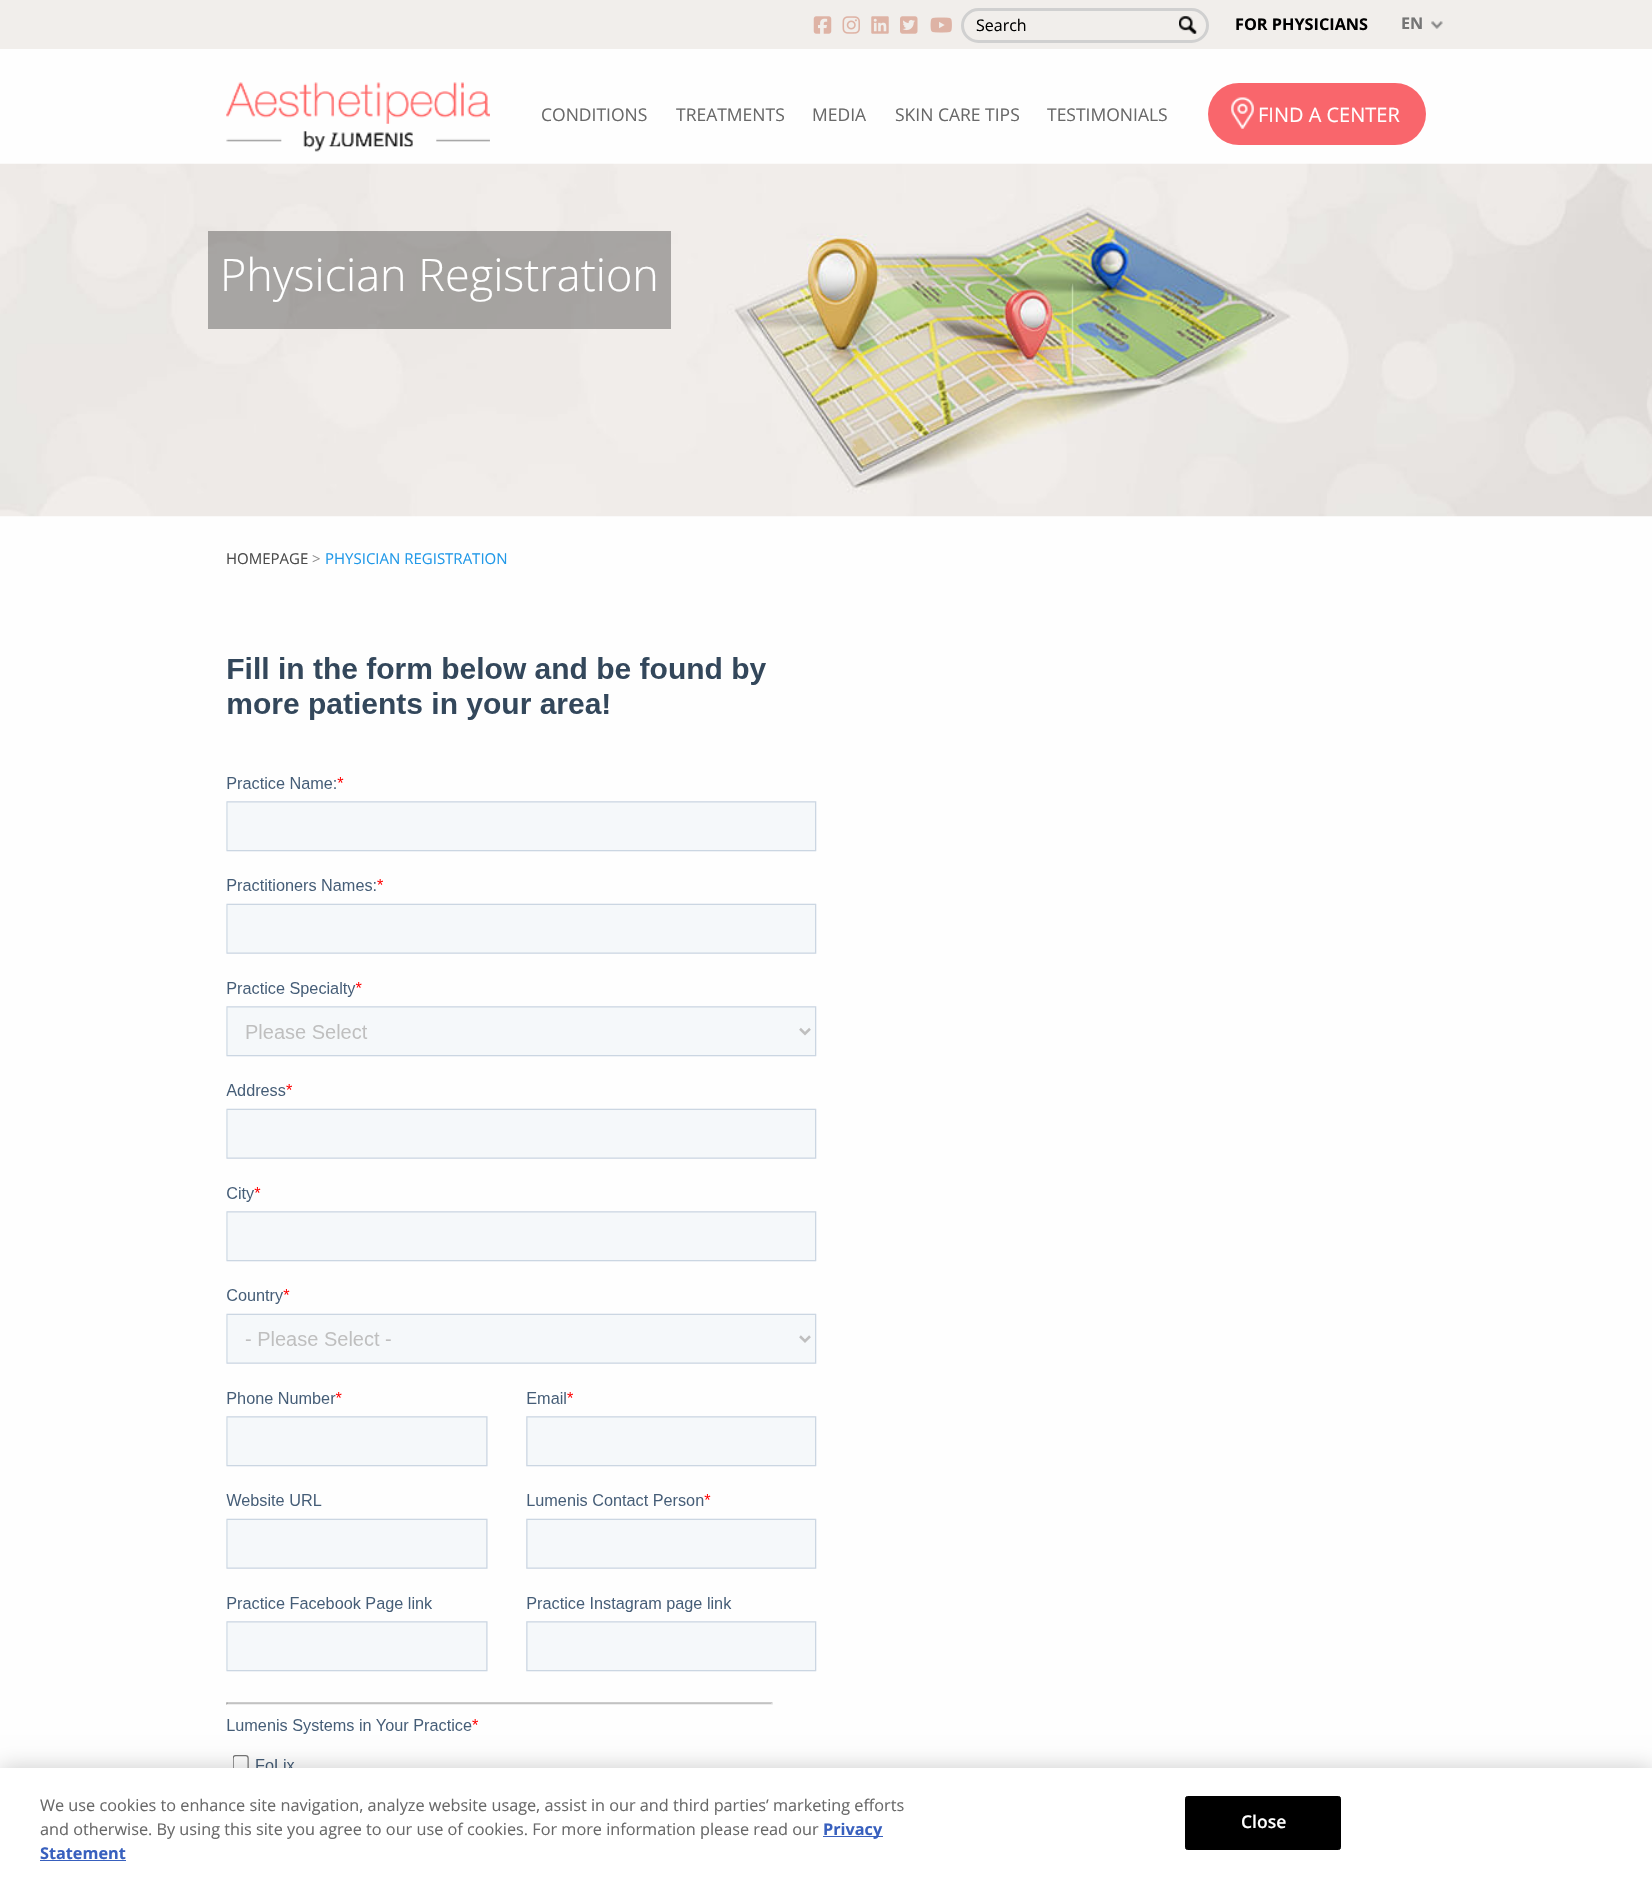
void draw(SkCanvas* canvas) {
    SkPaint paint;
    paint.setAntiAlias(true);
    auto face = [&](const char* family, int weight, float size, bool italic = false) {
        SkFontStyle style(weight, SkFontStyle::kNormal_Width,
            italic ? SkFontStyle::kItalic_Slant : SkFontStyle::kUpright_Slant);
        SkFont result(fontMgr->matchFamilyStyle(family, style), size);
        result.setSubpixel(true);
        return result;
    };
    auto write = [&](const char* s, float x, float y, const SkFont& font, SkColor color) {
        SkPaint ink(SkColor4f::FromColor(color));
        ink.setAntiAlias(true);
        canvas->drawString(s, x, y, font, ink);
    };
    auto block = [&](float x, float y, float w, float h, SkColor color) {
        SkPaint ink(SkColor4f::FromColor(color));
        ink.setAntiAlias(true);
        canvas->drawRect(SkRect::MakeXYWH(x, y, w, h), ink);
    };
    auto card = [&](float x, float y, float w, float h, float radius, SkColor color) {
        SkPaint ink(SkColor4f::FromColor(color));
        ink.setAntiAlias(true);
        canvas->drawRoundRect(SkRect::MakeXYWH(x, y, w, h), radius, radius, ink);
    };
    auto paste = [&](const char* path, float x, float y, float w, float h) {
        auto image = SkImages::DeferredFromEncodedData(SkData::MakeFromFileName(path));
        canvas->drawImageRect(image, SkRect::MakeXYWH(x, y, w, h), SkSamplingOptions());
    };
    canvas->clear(SkColorSetRGB(254, 254, 254));
    block(0, 0, 1652, 49, SkColorSetRGB(241, 238, 235));
    paste("pic1.png", 813, 16, 19, 18);
    paste("pic2.png", 842, 16, 18, 18);
    paste("pic3.png", 871, 16, 18, 18);
    paste("pic4.png", 900, 16, 18, 18);
    paste("pic5.png", 930, 17, 22, 16);
    paint.setStyle(SkPaint::kStroke_Style);
    paint.setStrokeWidth(3);
    paint.setColor(SkColorSetRGB(208, 208, 208));
    canvas->drawRoundRect(SkRect::MakeXYWH(962.5f, 9.5f, 245, 32), 16, 16, paint);
    auto kFont1 = face("Open Sans", 400, 16);
    write("Search", 976, 31, kFont1, SK_ColorBLACK);
    paste("pic6.png", 1179, 16, 18, 18);
    auto kFont2 = face("Open Sans", 700, 16.25f);
    write("FOR PHYSICIANS", 1235, 30, kFont2, SK_ColorBLACK);
    paste("pic7.png", 1431, 21, 12, 8);
    write("EN", 1401, 29, kFont2, SkColorSetRGB(117, 117, 117));
    paste("pic8.png", 226, 82, 264, 70);
    auto kFont3 = face("Open Sans", 400, 17.5f);
    write("CONDITIONS", 541, 121, kFont3, SkColorSetRGB(105, 105, 105));
    write("TREATMENTS", 676, 121, kFont3, SkColorSetRGB(105, 105, 105));
    write("MEDIA", 812, 121, kFont3, SkColorSetRGB(105, 105, 105));
    write("SKIN CARE TIPS", 895, 121, kFont3, SkColorSetRGB(105, 105, 105));
    write("TESTIMONIALS", 1047, 121, kFont3, SkColorSetRGB(105, 105, 105));
    card(1208, 83, 218, 62, 31, SkColorSetRGB(249, 102, 108));
    paste("pic9.png", 1231, 97, 23, 32);
    auto kFont4 = face("Open Sans", 400, 20);
    write("FIND A CENTER", 1258, 122, kFont4, SK_ColorWHITE);
    paste("pic10.png", 0, 163, 1652, 354);
    block(208, 231, 463, 98, SkColorSetARGB(77, 0, 0, 0));
    auto kFont5 = face("Open Sans", 300, 45);
    write("Physician Registration", 220, 291, kFont5, SK_ColorWHITE);
    auto kFont6 = face("Open Sans", 400, 15);
    write("HOMEPAGE", 226, 564, kFont6, SkColorSetRGB(75, 75, 75));
    write(">", 312, 564, kFont6, SkColorSetRGB(140, 140, 140));
    write("PHYSICIAN REGISTRATION", 325, 564, kFont6, SkColorSetRGB(33, 153, 232));
    paste("pic11.png", 226, 657, 591, 1111);
    paint.setStyle(SkPaint::kFill_Style);
    paint.setColor(SkColorSetARGB(51, 0, 0, 0));
    paint.setMaskFilter(SkMaskFilter::MakeBlur(kNormal_SkBlurStyle, 11));
    canvas->drawRect(SkRect::MakeXYWH(0, 1768, 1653, 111), paint);
    paint.setMaskFilter(nullptr);
    block(0, 1768, 1652, 110, SK_ColorWHITE);
    auto kFont7 = face("Open Sans", 400, 16.25f);
    write("We use cookies to enhance site navigation, analyze website usage, assist in our and third parties’ marketing efforts", 40, 1811, kFont7, SkColorSetRGB(105, 105, 105));
    write("and otherwise. By using this site you agree to our use of cookies. For more information please read our", 40, 1835, kFont7, SkColorSetRGB(105, 105, 105));
    block(823, 1836, 60, 1, SkColorSetRGB(56, 96, 190));
    write("Privacy", 823, 1835, kFont2, SkColorSetRGB(56, 96, 190));
    write("Statement", 40, 1859, kFont2, SkColorSetRGB(56, 96, 190));
    block(40, 1860, 86, 1, SkColorSetRGB(56, 96, 190));
    paint.setColor(SK_ColorBLACK);
    canvas->drawRoundRect(SkRect::MakeXYWH(1185.5f, 1796.5f, 155, 53), 2, 2, paint);
    paint.setStyle(SkPaint::kStroke_Style);
    paint.setStrokeWidth(1);
    canvas->drawRoundRect(SkRect::MakeXYWH(1185.5f, 1796.5f, 155, 53), 2, 2, paint);
    auto kFont8 = face("Open Sans", 600, 17.5f);
    write("Close", 1241, 1828, kFont8, SK_ColorWHITE);
}
